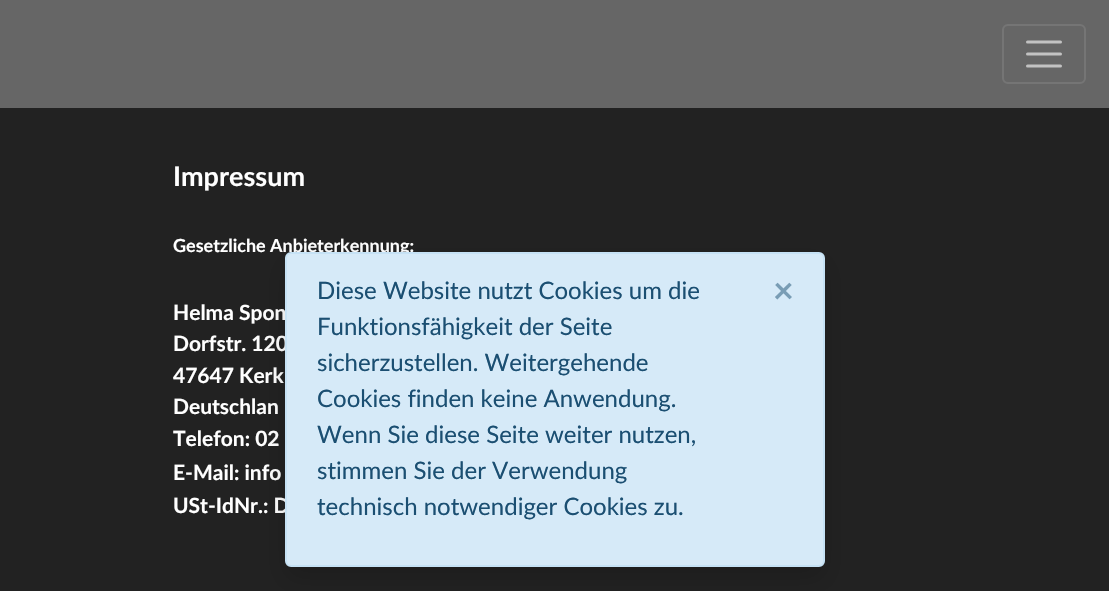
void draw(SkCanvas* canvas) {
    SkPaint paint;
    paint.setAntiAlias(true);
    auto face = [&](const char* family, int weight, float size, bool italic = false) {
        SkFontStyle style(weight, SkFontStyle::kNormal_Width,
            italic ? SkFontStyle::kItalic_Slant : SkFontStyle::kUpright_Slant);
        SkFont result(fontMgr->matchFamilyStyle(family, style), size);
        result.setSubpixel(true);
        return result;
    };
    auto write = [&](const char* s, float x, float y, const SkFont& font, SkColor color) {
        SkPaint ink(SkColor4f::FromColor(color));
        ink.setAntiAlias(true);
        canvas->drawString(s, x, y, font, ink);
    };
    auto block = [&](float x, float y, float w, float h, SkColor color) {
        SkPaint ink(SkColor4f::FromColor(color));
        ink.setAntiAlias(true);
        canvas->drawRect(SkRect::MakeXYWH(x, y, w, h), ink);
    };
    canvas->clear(SkColorSetRGB(34, 34, 34));
    block(0, 0, 1109, 108, SkColorSetRGB(102, 102, 102));
    paint.setStyle(SkPaint::kStroke_Style);
    paint.setStrokeWidth(2);
    paint.setColor(SkColorSetRGB(117, 117, 117));
    canvas->drawRoundRect(SkRect::MakeXYWH(1003, 25, 82, 58), 5, 5, paint);
    paint.setStrokeWidth(3);
    paint.setStrokeCap(SkPaint::kRound_Cap);
    paint.setColor(SkColorSetRGB(194, 194, 194));
    canvas->drawPath(SkPathBuilder().moveTo(1027.5f, 42).lineTo(1060.5f, 42).moveTo(1027.5f, 54).lineTo(1060.5f, 54).moveTo(1027.5f, 66).lineTo(1060.5f, 66).detach(), paint);
    auto kFont1 = face("Lato", 700, 27);
    write("Impressum", 173, 186, kFont1, SK_ColorWHITE);
    auto kFont2 = face("Lato", 700, 18);
    write("Gesetzliche Anbieterkennung:", 173, 252, kFont2, SK_ColorWHITE);
    auto kFont3 = face("Lato", 700, 21);
    write("Helma Spon", 173, 320, kFont3, SK_ColorWHITE);
    write("Dorfstr. 120", 173, 351, kFont3, SK_ColorWHITE);
    write("47647 Kerk", 173, 383, kFont3, SK_ColorWHITE);
    write("Deutschlan", 173, 414, kFont3, SK_ColorWHITE);
    write("Telefon: 02", 173, 446, kFont3, SK_ColorWHITE);
    write("E-Mail: info", 173, 480, kFont3, SK_ColorWHITE);
    write("USt-IdNr.: D", 173, 513, kFont3, SK_ColorWHITE);
    paint.setStyle(SkPaint::kFill_Style);
    paint.setColor(SkColorSetARGB(38, 0, 0, 0));
    paint.setMaskFilter(SkMaskFilter::MakeBlur(kNormal_SkBlurStyle, 12));
    canvas->drawRoundRect(SkRect::MakeXYWH(285, 264, 540, 315), 6, 6, paint);
    paint.setMaskFilter(nullptr);
    paint.setColor(SkColorSetRGB(214, 234, 248));
    canvas->drawRoundRect(SkRect::MakeXYWH(286, 253, 538, 313), 5, 5, paint);
    paint.setStyle(SkPaint::kStroke_Style);
    paint.setStrokeWidth(2);
    paint.setStrokeCap(SkPaint::kButt_Cap);
    paint.setColor(SkColorSetRGB(198, 226, 245));
    canvas->drawRoundRect(SkRect::MakeXYWH(286, 253, 538, 313), 5, 5, paint);
    auto kFont4 = face("Lato", 400, 24);
    write("Diese Website nutzt Cookies um die", 317, 299, kFont4, SkColorSetRGB(27, 79, 114));
    write("Funktionsfähigkeit der Seite", 317, 335, kFont4, SkColorSetRGB(27, 79, 114));
    write("sicherzustellen. Weitergehende", 317, 371, kFont4, SkColorSetRGB(27, 79, 114));
    write("Cookies finden keine Anwendung.", 317, 407, kFont4, SkColorSetRGB(27, 79, 114));
    write("Wenn Sie diese Seite weiter nutzen,", 317, 443, kFont4, SkColorSetRGB(27, 79, 114));
    write("stimmen Sie der Verwendung", 317, 479, kFont4, SkColorSetRGB(27, 79, 114));
    write("technisch notwendiger Cookies zu.", 317, 515, kFont4, SkColorSetRGB(27, 79, 114));
    auto kFont5 = face("Lato", 700, 36);
    write("×", 773, 303, kFont5, SkColorSetRGB(121, 157, 181));
}
